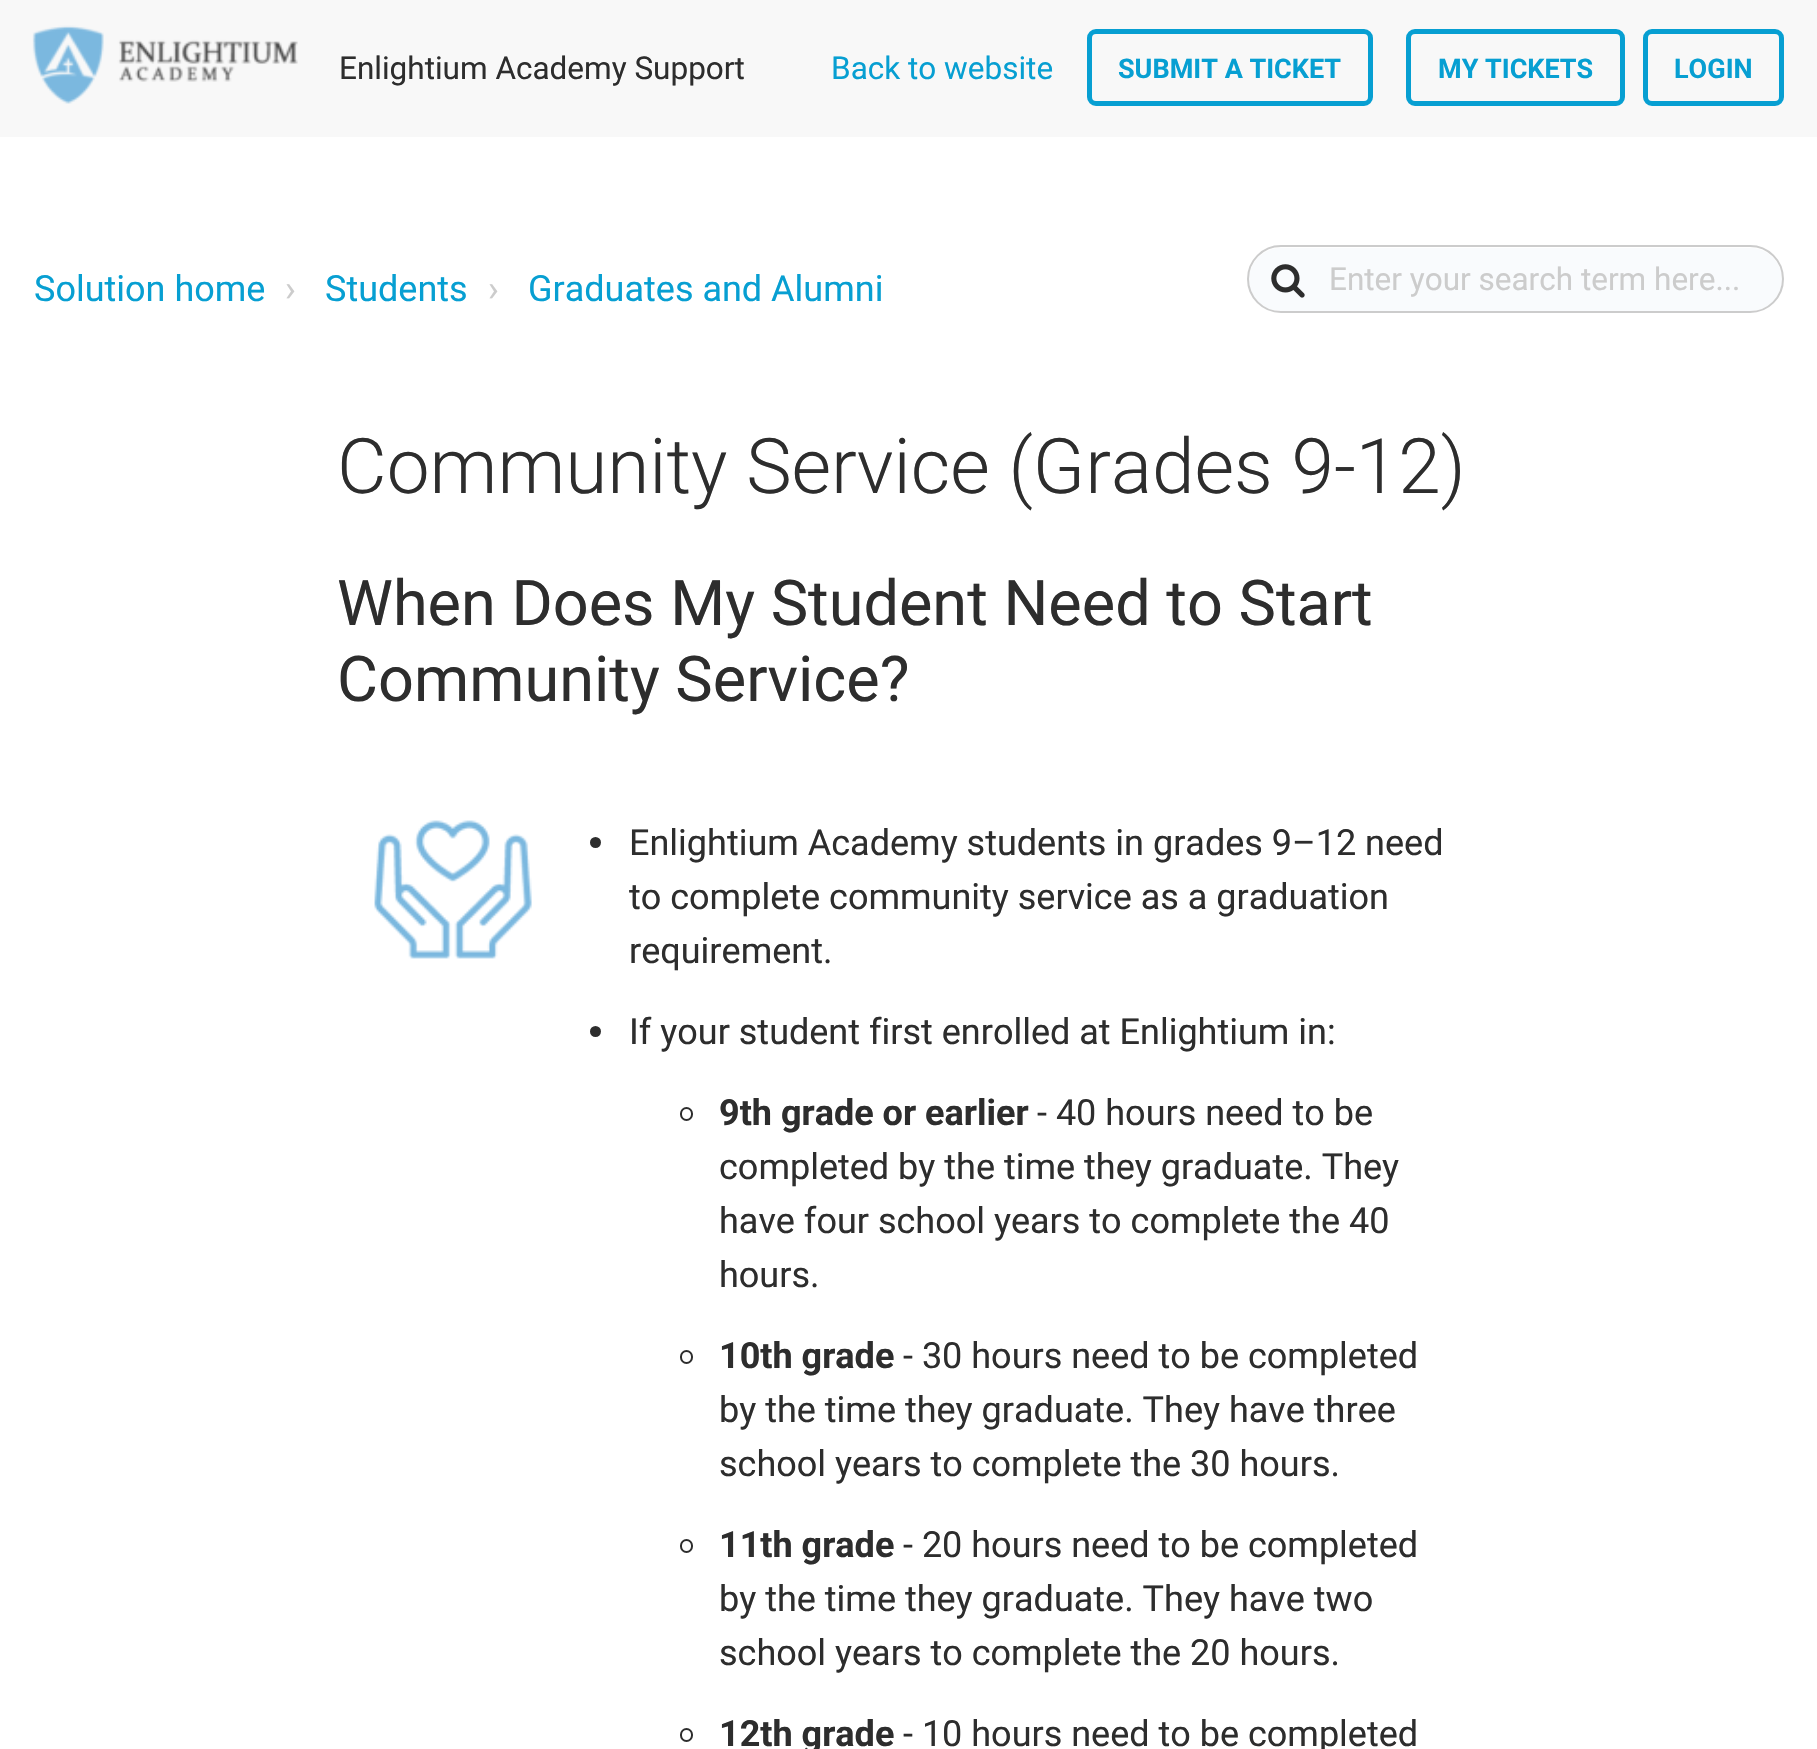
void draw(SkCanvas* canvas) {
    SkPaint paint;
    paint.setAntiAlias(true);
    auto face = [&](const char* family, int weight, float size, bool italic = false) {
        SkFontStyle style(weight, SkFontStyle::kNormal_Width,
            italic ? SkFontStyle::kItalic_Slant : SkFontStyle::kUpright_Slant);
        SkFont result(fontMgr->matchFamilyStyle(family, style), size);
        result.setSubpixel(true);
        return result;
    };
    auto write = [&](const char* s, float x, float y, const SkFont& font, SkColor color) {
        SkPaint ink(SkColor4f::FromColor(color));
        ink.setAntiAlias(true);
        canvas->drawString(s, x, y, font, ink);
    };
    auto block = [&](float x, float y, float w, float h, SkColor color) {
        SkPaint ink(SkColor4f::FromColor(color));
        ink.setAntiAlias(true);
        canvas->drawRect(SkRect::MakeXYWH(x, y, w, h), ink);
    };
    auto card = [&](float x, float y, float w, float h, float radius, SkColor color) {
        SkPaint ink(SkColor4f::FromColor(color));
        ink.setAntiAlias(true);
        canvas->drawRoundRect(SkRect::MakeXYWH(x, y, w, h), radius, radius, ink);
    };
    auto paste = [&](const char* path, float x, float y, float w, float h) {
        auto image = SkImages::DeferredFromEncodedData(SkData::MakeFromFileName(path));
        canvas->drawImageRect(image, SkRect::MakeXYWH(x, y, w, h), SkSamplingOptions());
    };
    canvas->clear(SK_ColorWHITE);
    block(0, 0, 1817, 137, SkColorSetRGB(248, 248, 248));
    paste("pic1.png", 32, 25, 266, 79);
    auto kFont1 = face("Roboto", 400, 31.5f);
    write("Enlightium Academy Support", 339, 79, kFont1, SkColorSetRGB(45, 45, 45));
    write("Back to website", 831, 79, kFont1, SkColorSetRGB(7, 159, 210));
    paint.setStyle(SkPaint::kStroke_Style);
    paint.setStrokeWidth(5);
    paint.setColor(SkColorSetRGB(7, 159, 210));
    canvas->drawRoundRect(SkRect::MakeXYWH(1089.5f, 31.5f, 281, 72), 6.5f, 6.5f, paint);
    auto kFont2 = face("Roboto", 700, 27);
    write("SUBMIT A TICKET", 1118, 78, kFont2, SkColorSetRGB(7, 159, 210));
    canvas->drawRoundRect(SkRect::MakeXYWH(1408.5f, 31.5f, 214, 72), 6.5f, 6.5f, paint);
    write("MY TICKETS", 1438, 78, kFont2, SkColorSetRGB(7, 159, 210));
    canvas->drawRoundRect(SkRect::MakeXYWH(1645.5f, 31.5f, 136, 72), 6.5f, 6.5f, paint);
    write("LOGIN", 1674, 78, kFont2, SkColorSetRGB(7, 159, 210));
    auto kFont3 = face("Roboto", 400, 36);
    write("Solution home", 34, 301, kFont3, SkColorSetRGB(7, 159, 210));
    write("›", 285, 301, kFont3, SkColorSetRGB(204, 204, 204));
    write("Students", 325, 301, kFont3, SkColorSetRGB(7, 159, 210));
    write("›", 488, 301, kFont3, SkColorSetRGB(204, 204, 204));
    write("Graduates and Alumni", 528, 301, kFont3, SkColorSetRGB(7, 159, 210));
    card(1249, 248, 533, 63, 31.5f, SkColorSetRGB(249, 251, 253));
    paint.setStrokeWidth(2);
    paint.setColor(SkColorSetRGB(204, 204, 204));
    canvas->drawRoundRect(SkRect::MakeXYWH(1248, 246, 535, 66), 33, 33, paint);
    paste("pic2.png", 1271, 264, 34, 34);
    write("Enter your search term here...", 1329, 290, kFont1, SkColorSetRGB(204, 204, 204));
    auto kFont4 = face("Roboto", 300, 76.5f);
    write("Community Service (Grades 9-12)", 337, 493, kFont4, SkColorSetRGB(45, 45, 45));
    auto kFont5 = face("Roboto", 400, 63);
    write("When Does My Student Need to Start", 337, 625, kFont5, SkColorSetRGB(45, 45, 45));
    write("Community Service?", 337, 701, kFont5, SkColorSetRGB(45, 45, 45));
    paste("pic3.png", 374, 820, 158, 139);
    paint.setStyle(SkPaint::kFill_Style);
    paint.setColor(SkColorSetRGB(45, 45, 45));
    canvas->drawCircle(595.5f, 842.5f, 5.5f, paint);
    write("Enlightium Academy students in grades 9–12 need", 629, 855, kFont3, SkColorSetRGB(45, 45, 45));
    write("to complete community service as a graduation", 629, 909, kFont3, SkColorSetRGB(45, 45, 45));
    write("requirement.", 629, 963, kFont3, SkColorSetRGB(45, 45, 45));
    canvas->drawCircle(595.5f, 1031.5f, 5.5f, paint);
    write("If your student first enrolled at Enlightium in:", 629, 1044, kFont3, SkColorSetRGB(45, 45, 45));
    paint.setStyle(SkPaint::kStroke_Style);
    canvas->drawRoundRect(SkRect::MakeXYWH(681, 1108, 11, 12), 5.5f, 5.5f, paint);
    auto kFont6 = face("Roboto", 700, 36);
    write("9th grade or earlier", 719, 1125, kFont6, SkColorSetRGB(45, 45, 45));
    write("- 40 hours need to be", 1037, 1125, kFont3, SkColorSetRGB(45, 45, 45));
    write("completed by the time they graduate. They", 719, 1179, kFont3, SkColorSetRGB(45, 45, 45));
    write("have four school years to complete the 40", 719, 1233, kFont3, SkColorSetRGB(45, 45, 45));
    write("hours.", 719, 1287, kFont3, SkColorSetRGB(45, 45, 45));
    canvas->drawRoundRect(SkRect::MakeXYWH(681, 1351, 11, 12), 5.5f, 5.5f, paint);
    write("10th grade", 719, 1368, kFont6, SkColorSetRGB(45, 45, 45));
    write("- 30 hours need to be completed", 903, 1368, kFont3, SkColorSetRGB(45, 45, 45));
    write("by the time they graduate. They have three", 719, 1422, kFont3, SkColorSetRGB(45, 45, 45));
    write("school years to complete the 30 hours.", 719, 1476, kFont3, SkColorSetRGB(45, 45, 45));
    canvas->drawRoundRect(SkRect::MakeXYWH(681, 1540, 11, 12), 5.5f, 5.5f, paint);
    write("11th grade", 719, 1557, kFont6, SkColorSetRGB(45, 45, 45));
    write("- 20 hours need to be completed", 903, 1557, kFont3, SkColorSetRGB(45, 45, 45));
    write("by the time they graduate. They have two", 719, 1611, kFont3, SkColorSetRGB(45, 45, 45));
    write("school years to complete the 20 hours.", 719, 1665, kFont3, SkColorSetRGB(45, 45, 45));
    canvas->drawRoundRect(SkRect::MakeXYWH(681, 1729, 11, 12), 5.5f, 5.5f, paint);
    write("12th grade", 719, 1746, kFont6, SkColorSetRGB(45, 45, 45));
    write("- 10 hours need to be completed", 903, 1746, kFont3, SkColorSetRGB(45, 45, 45));
}
